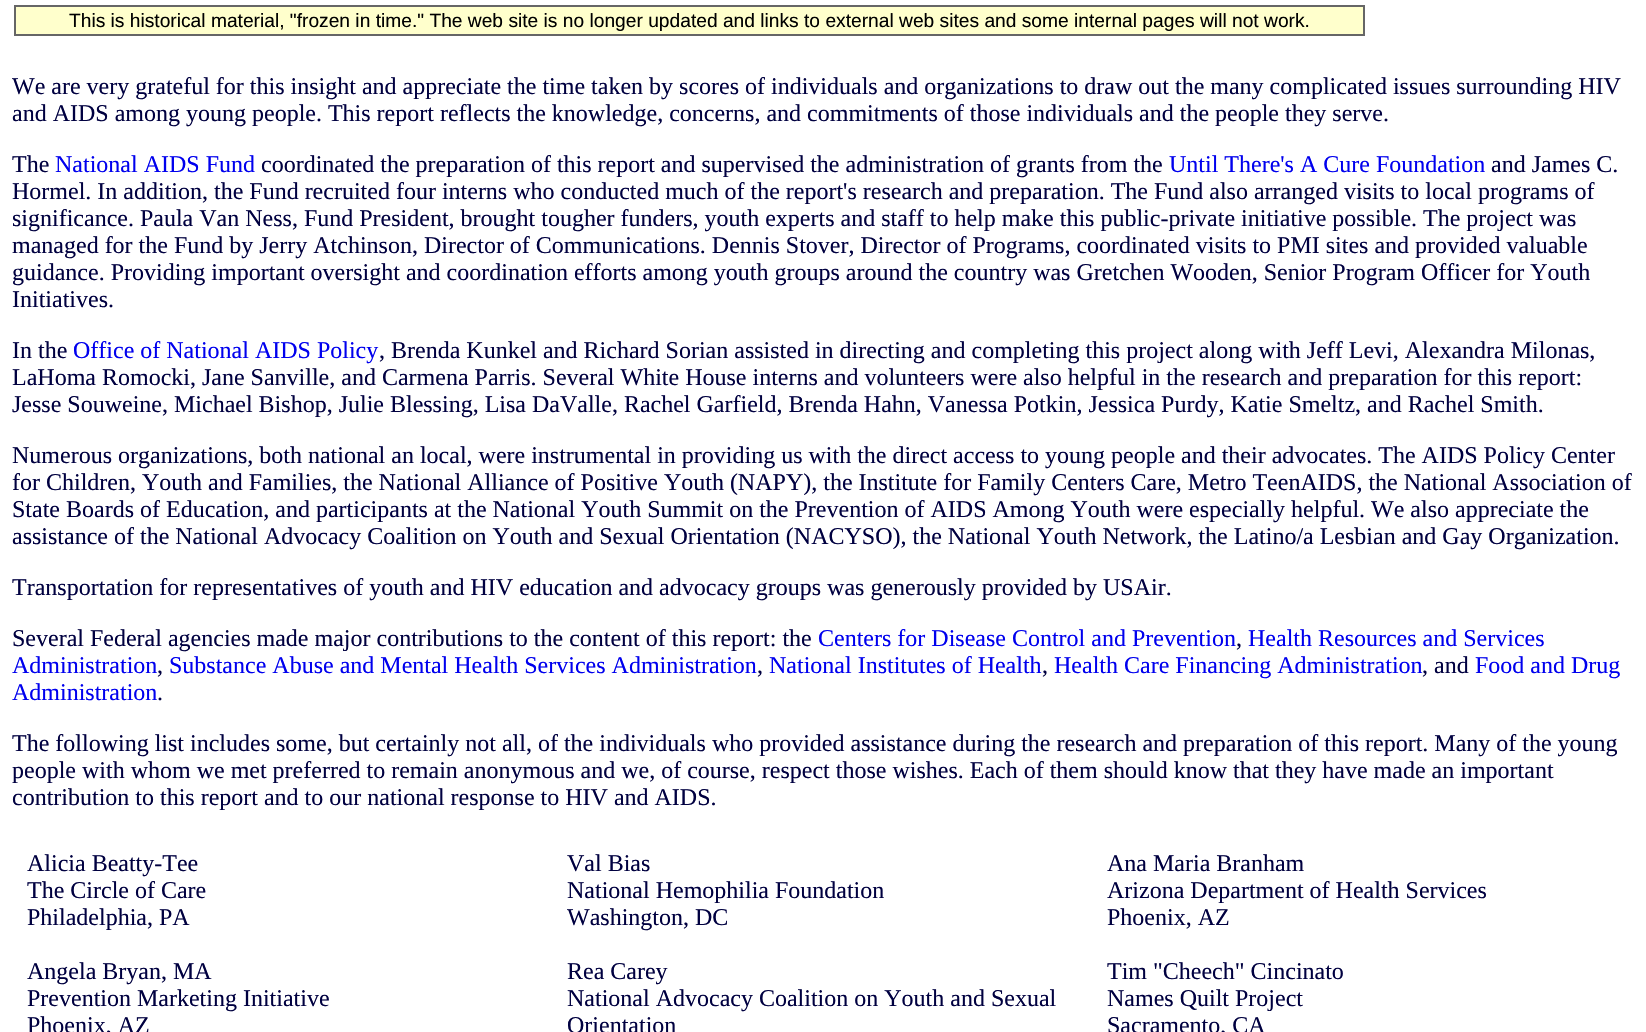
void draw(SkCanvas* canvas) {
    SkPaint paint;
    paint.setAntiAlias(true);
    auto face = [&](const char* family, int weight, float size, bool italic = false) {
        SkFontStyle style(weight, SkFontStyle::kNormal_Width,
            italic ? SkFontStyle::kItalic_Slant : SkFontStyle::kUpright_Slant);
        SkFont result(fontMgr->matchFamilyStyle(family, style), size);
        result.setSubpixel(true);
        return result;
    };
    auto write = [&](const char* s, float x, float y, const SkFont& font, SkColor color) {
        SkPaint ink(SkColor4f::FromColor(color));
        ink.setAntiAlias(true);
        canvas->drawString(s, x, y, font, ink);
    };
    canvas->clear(SK_ColorWHITE);
    paint.setColor(SkColorSetRGB(255, 255, 204));
    canvas->drawRect(SkRect::MakeXYWH(15, 6, 1349, 29), paint);
    paint.setStyle(SkPaint::kStroke_Style);
    paint.setStrokeWidth(2);
    paint.setColor(SkColorSetRGB(102, 102, 102));
    canvas->drawRect(SkRect::MakeXYWH(15, 6, 1349, 29), paint);
    auto kFont1 = face("Liberation Sans", 400, 19.2f);
    write("This is historical material, \"frozen in time.\" The web site is no longer updated and links to external web sites and some internal pages will not work.", 69, 27, kFont1, SK_ColorBLACK);
    auto kFont2 = face("Liberation Serif", 400, 24);
    write("We are very grateful for this insight and appreciate the time taken by scores of individuals and organizations to draw out the many complicated issues surrounding HIV", 12, 94, kFont2, SkColorSetRGB(0, 0, 64));
    write("and AIDS among young people. This report reflects the knowledge, concerns, and commitments of those individuals and the people they serve.", 12, 121, kFont2, SkColorSetRGB(0, 0, 64));
    write("The", 12, 172, kFont2, SkColorSetRGB(0, 0, 64));
    write("National AIDS Fund", 55, 172, kFont2, SkColorSetRGB(0, 0, 238));
    write("coordinated the preparation of this report and supervised the administration of grants from the", 261, 172, kFont2, SkColorSetRGB(0, 0, 64));
    write("Until There's A Cure Foundation", 1169, 172, kFont2, SkColorSetRGB(0, 0, 238));
    write("and James C.", 1491, 172, kFont2, SkColorSetRGB(0, 0, 64));
    write("Hormel. In addition, the Fund recruited four interns who conducted much of the report's research and preparation. The Fund also arranged visits to local programs of", 12, 199, kFont2, SkColorSetRGB(0, 0, 64));
    write("significance. Paula Van Ness, Fund President, brought tougher funders, youth experts and staff to help make this public-private initiative possible. The project was", 12, 226, kFont2, SkColorSetRGB(0, 0, 64));
    write("managed for the Fund by Jerry Atchinson, Director of Communications. Dennis Stover, Director of Programs, coordinated visits to PMI sites and provided valuable", 12, 253, kFont2, SkColorSetRGB(0, 0, 64));
    write("guidance. Providing important oversight and coordination efforts among youth groups around the country was Gretchen Wooden, Senior Program Officer for Youth", 12, 280, kFont2, SkColorSetRGB(0, 0, 64));
    write("Initiatives.", 12, 307, kFont2, SkColorSetRGB(0, 0, 64));
    write("In the", 12, 358, kFont2, SkColorSetRGB(0, 0, 64));
    write("Office of National AIDS Policy", 73, 358, kFont2, SkColorSetRGB(0, 0, 238));
    write(", Brenda Kunkel and Richard Sorian assisted in directing and completing this project along with Jeff Levi, Alexandra Milonas,", 379, 358, kFont2, SkColorSetRGB(0, 0, 64));
    write("LaHoma Romocki, Jane Sanville, and Carmena Parris. Several White House interns and volunteers were also helpful in the research and preparation for this report:", 12, 385, kFont2, SkColorSetRGB(0, 0, 64));
    write("Jesse Souweine, Michael Bishop, Julie Blessing, Lisa DaValle, Rachel Garfield, Brenda Hahn, Vanessa Potkin, Jessica Purdy, Katie Smeltz, and Rachel Smith.", 12, 412, kFont2, SkColorSetRGB(0, 0, 64));
    write("Numerous organizations, both national an local, were instrumental in providing us with the direct access to young people and their advocates. The AIDS Policy Center", 12, 463, kFont2, SkColorSetRGB(0, 0, 64));
    write("for Children, Youth and Families, the National Alliance of Positive Youth (NAPY), the Institute for Family Centers Care, Metro TeenAIDS, the National Association of", 12, 490, kFont2, SkColorSetRGB(0, 0, 64));
    write("State Boards of Education, and participants at the National Youth Summit on the Prevention of AIDS Among Youth were especially helpful. We also appreciate the", 12, 517, kFont2, SkColorSetRGB(0, 0, 64));
    write("assistance of the National Advocacy Coalition on Youth and Sexual Orientation (NACYSO), the National Youth Network, the Latino/a Lesbian and Gay Organization.", 12, 544, kFont2, SkColorSetRGB(0, 0, 64));
    write("Transportation for representatives of youth and HIV education and advocacy groups was generously provided by USAir.", 12, 595, kFont2, SkColorSetRGB(0, 0, 64));
    write("Several Federal agencies made major contributions to the content of this report: the", 12, 646, kFont2, SkColorSetRGB(0, 0, 64));
    write("Centers for Disease Control and Prevention", 818, 646, kFont2, SkColorSetRGB(0, 0, 238));
    write(",", 1236, 646, kFont2, SkColorSetRGB(0, 0, 64));
    write("Health Resources and Services", 1248, 646, kFont2, SkColorSetRGB(0, 0, 238));
    write("Administration", 12, 673, kFont2, SkColorSetRGB(0, 0, 238));
    write(",", 157, 673, kFont2, SkColorSetRGB(0, 0, 64));
    write("Substance Abuse and Mental Health Services Administration", 169, 673, kFont2, SkColorSetRGB(0, 0, 238));
    write(",", 757, 673, kFont2, SkColorSetRGB(0, 0, 64));
    write("National Institutes of Health", 769, 673, kFont2, SkColorSetRGB(0, 0, 238));
    write(",", 1042, 673, kFont2, SkColorSetRGB(0, 0, 64));
    write("Health Care Financing Administration", 1054, 673, kFont2, SkColorSetRGB(0, 0, 238));
    write(", and", 1422, 673, kFont2, SkColorSetRGB(0, 0, 64));
    write("Food and Drug", 1475, 673, kFont2, SkColorSetRGB(0, 0, 238));
    write("Administration", 12, 700, kFont2, SkColorSetRGB(0, 0, 238));
    write(".", 157, 700, kFont2, SkColorSetRGB(0, 0, 64));
    write("The following list includes some, but certainly not all, of the individuals who provided assistance during the research and preparation of this report. Many of the young", 12, 751, kFont2, SkColorSetRGB(0, 0, 64));
    write("people with whom we met preferred to remain anonymous and we, of course, respect those wishes. Each of them should know that they have made an important", 12, 778, kFont2, SkColorSetRGB(0, 0, 64));
    write("contribution to this report and to our national response to HIV and AIDS.", 12, 805, kFont2, SkColorSetRGB(0, 0, 64));
    write("Alicia Beatty-Tee", 27, 871, kFont2, SkColorSetRGB(0, 0, 64));
    write("The Circle of Care", 27, 898, kFont2, SkColorSetRGB(0, 0, 64));
    write("Philadelphia, PA", 27, 925, kFont2, SkColorSetRGB(0, 0, 64));
    write("Val Bias", 567, 871, kFont2, SkColorSetRGB(0, 0, 64));
    write("National Hemophilia Foundation", 567, 898, kFont2, SkColorSetRGB(0, 0, 64));
    write("Washington, DC", 567, 925, kFont2, SkColorSetRGB(0, 0, 64));
    write("Ana Maria Branham", 1107, 871, kFont2, SkColorSetRGB(0, 0, 64));
    write("Arizona Department of Health Services", 1107, 898, kFont2, SkColorSetRGB(0, 0, 64));
    write("Phoenix, AZ", 1107, 925, kFont2, SkColorSetRGB(0, 0, 64));
    write("Angela Bryan, MA", 27, 979, kFont2, SkColorSetRGB(0, 0, 64));
    write("Prevention Marketing Initiative", 27, 1006, kFont2, SkColorSetRGB(0, 0, 64));
    write("Phoenix, AZ", 27, 1033, kFont2, SkColorSetRGB(0, 0, 64));
    write("Rea Carey", 567, 979, kFont2, SkColorSetRGB(0, 0, 64));
    write("National Advocacy Coalition on Youth and Sexual", 567, 1006, kFont2, SkColorSetRGB(0, 0, 64));
    write("Orientation", 567, 1033, kFont2, SkColorSetRGB(0, 0, 64));
    write("Tim \"Cheech\" Cincinato", 1107, 979, kFont2, SkColorSetRGB(0, 0, 64));
    write("Names Quilt Project", 1107, 1006, kFont2, SkColorSetRGB(0, 0, 64));
    write("Sacramento, CA", 1107, 1033, kFont2, SkColorSetRGB(0, 0, 64));
}
